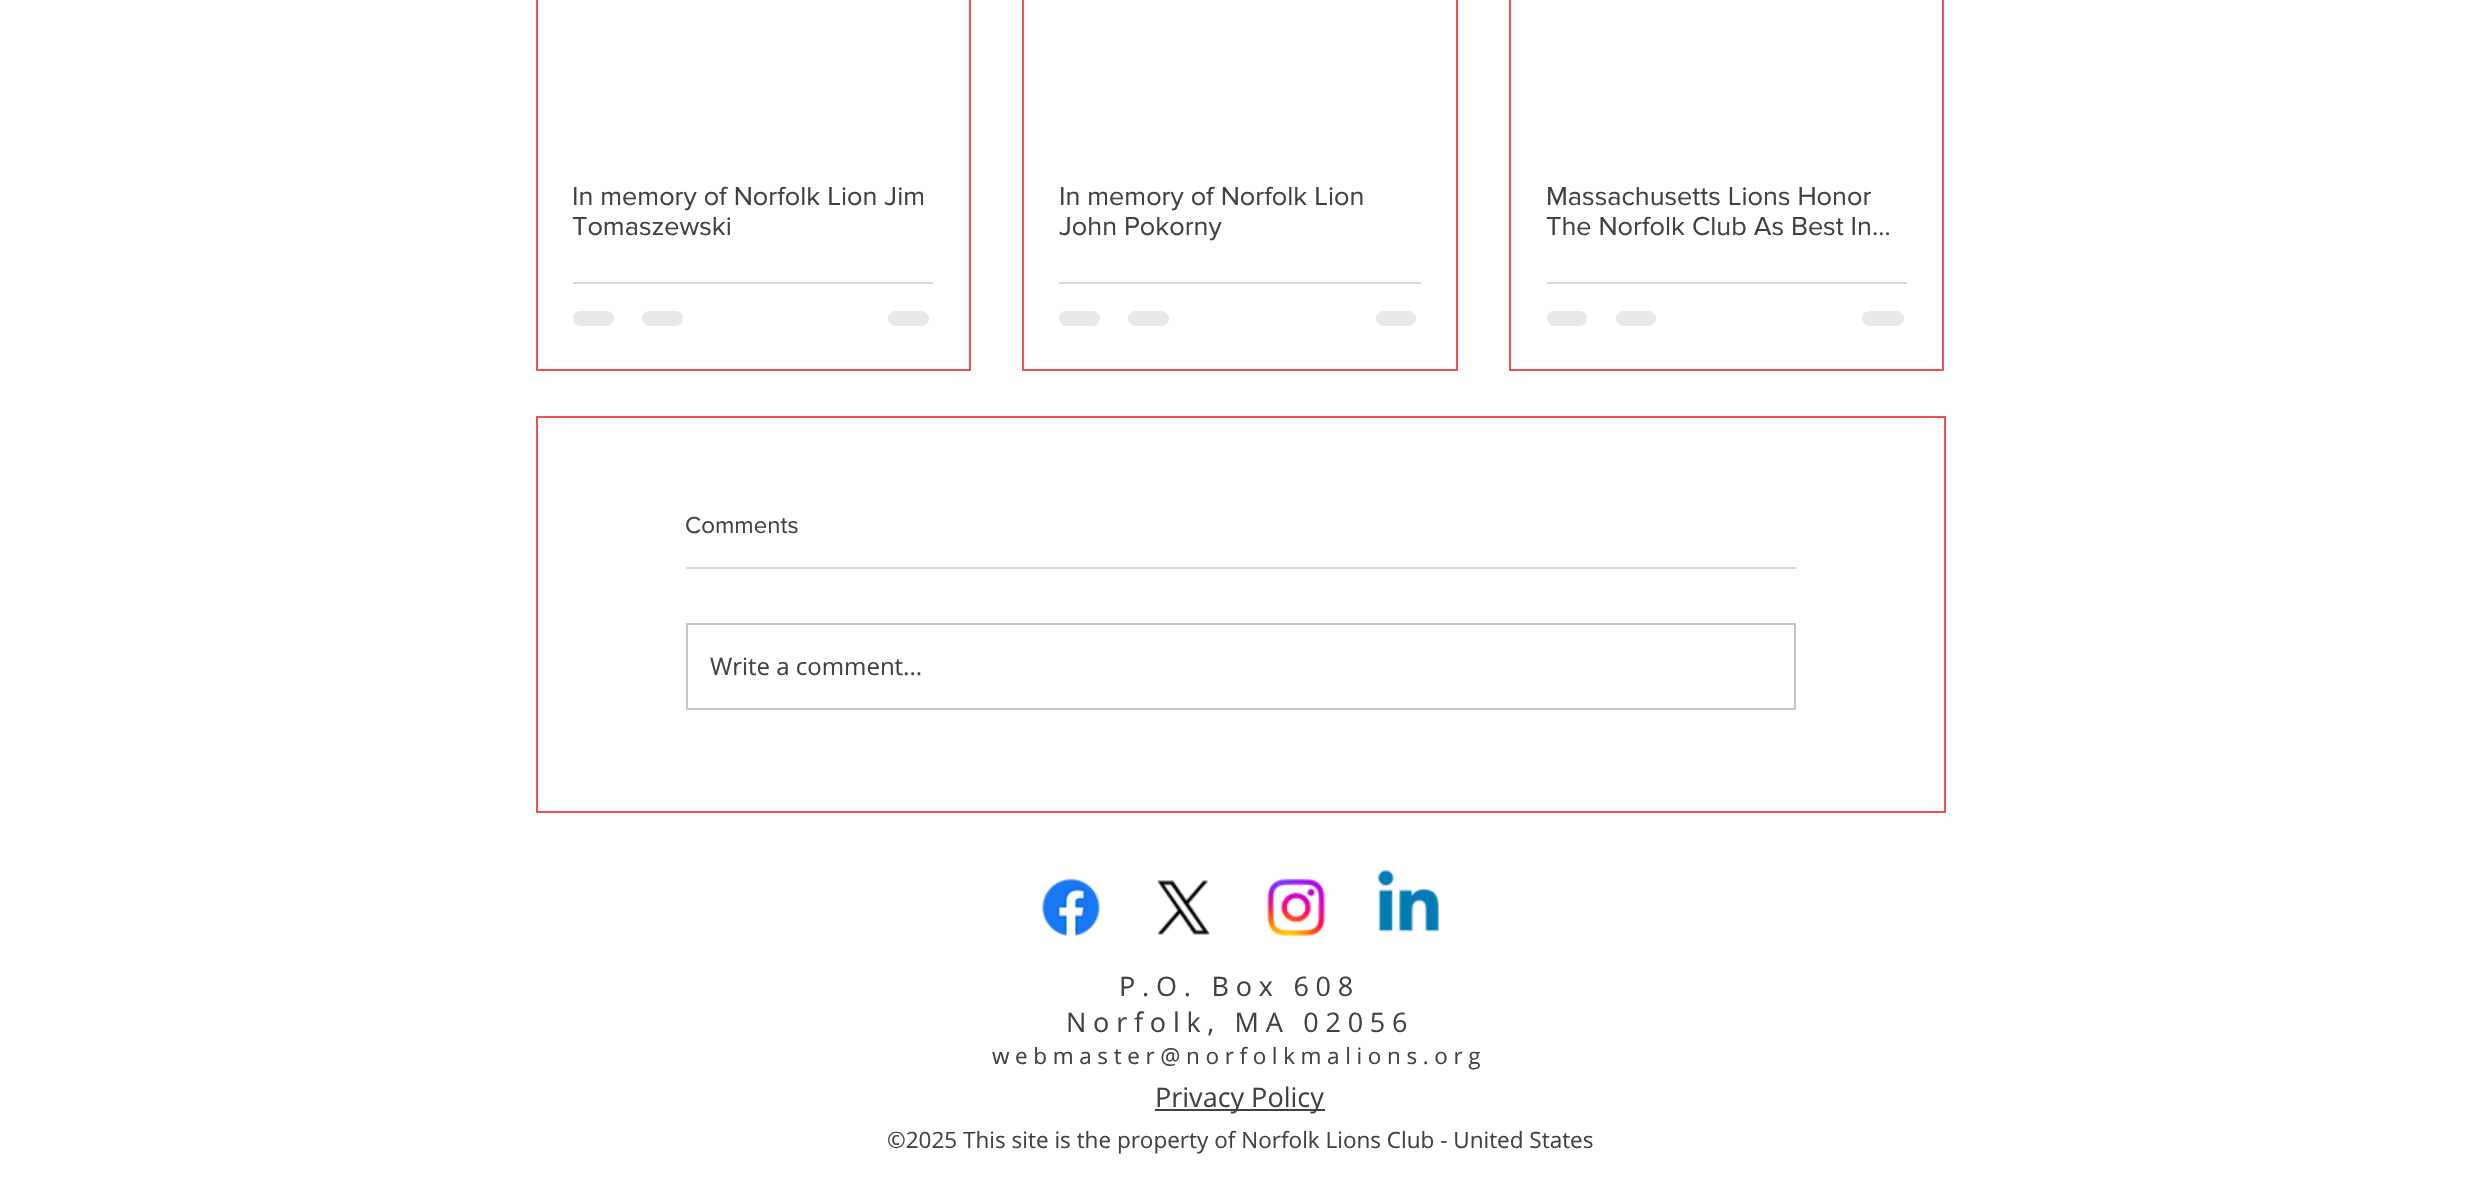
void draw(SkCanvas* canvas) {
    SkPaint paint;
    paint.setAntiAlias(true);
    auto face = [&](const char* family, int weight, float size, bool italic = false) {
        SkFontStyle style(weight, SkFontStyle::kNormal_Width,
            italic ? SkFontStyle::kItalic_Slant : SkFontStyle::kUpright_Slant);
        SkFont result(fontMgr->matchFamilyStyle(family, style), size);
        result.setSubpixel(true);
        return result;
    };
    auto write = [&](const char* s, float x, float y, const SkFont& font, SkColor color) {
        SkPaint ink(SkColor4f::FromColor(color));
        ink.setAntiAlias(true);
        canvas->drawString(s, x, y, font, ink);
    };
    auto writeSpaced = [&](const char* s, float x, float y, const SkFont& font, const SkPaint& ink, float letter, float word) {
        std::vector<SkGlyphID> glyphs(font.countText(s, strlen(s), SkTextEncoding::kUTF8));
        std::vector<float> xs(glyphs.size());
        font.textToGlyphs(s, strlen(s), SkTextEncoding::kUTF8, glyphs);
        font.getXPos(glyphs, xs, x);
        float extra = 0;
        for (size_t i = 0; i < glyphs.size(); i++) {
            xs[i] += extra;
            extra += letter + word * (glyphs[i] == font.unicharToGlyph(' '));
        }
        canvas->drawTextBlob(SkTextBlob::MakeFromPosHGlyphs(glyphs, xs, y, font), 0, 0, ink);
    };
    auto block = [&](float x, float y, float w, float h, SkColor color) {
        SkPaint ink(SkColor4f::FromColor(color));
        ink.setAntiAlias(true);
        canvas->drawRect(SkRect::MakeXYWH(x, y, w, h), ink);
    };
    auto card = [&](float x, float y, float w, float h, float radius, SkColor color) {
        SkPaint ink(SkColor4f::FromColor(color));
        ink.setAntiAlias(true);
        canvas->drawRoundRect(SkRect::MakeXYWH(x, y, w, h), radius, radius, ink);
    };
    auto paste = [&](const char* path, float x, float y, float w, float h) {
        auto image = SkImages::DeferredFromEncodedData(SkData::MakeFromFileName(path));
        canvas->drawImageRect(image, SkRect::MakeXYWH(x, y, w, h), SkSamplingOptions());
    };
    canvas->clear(SK_ColorWHITE);
    paint.setStyle(SkPaint::kStroke_Style);
    paint.setStrokeWidth(2);
    paint.setColor(SkColorSetRGB(238, 81, 81));
    canvas->drawRect(SkRect::MakeXYWH(537, -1, 433, 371), paint);
    auto kFont1 = face("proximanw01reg", 400, 27);
    write("In memory of Norfolk Lion Jim", 572, 205, kFont1, SkColorSetRGB(65, 65, 65));
    write("Tomaszewski", 572, 235, kFont1, SkColorSetRGB(65, 65, 65));
    block(573, 282, 360, 2, SkColorSetRGB(217, 217, 217));
    card(573, 311, 41, 15, 7.5f, SkColorSetRGB(232, 232, 232));
    card(642, 311, 41, 15, 7.5f, SkColorSetRGB(232, 232, 232));
    card(888, 311, 41, 15, 7.5f, SkColorSetRGB(232, 232, 232));
    canvas->drawRect(SkRect::MakeXYWH(1023, -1, 434, 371), paint);
    write("In memory of Norfolk Lion", 1059, 205, kFont1, SkColorSetRGB(65, 65, 65));
    write("John Pokorny", 1059, 235, kFont1, SkColorSetRGB(65, 65, 65));
    block(1059, 282, 362, 2, SkColorSetRGB(217, 217, 217));
    card(1059, 311, 41, 15, 7.5f, SkColorSetRGB(232, 232, 232));
    card(1128, 311, 41, 15, 7.5f, SkColorSetRGB(232, 232, 232));
    card(1376, 311, 40, 15, 7.5f, SkColorSetRGB(232, 232, 232));
    canvas->drawRect(SkRect::MakeXYWH(1510, -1, 433, 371), paint);
    write("Massachusetts Lions Honor", 1546, 205, kFont1, SkColorSetRGB(65, 65, 65));
    write("The Norfolk Club As Best In…", 1546, 235, kFont1, SkColorSetRGB(65, 65, 65));
    block(1547, 282, 360, 2, SkColorSetRGB(217, 217, 217));
    card(1547, 311, 40, 15, 7.5f, SkColorSetRGB(232, 232, 232));
    card(1616, 311, 40, 15, 7.5f, SkColorSetRGB(232, 232, 232));
    card(1862, 311, 42, 15, 7.5f, SkColorSetRGB(232, 232, 232));
    canvas->drawRect(SkRect::MakeXYWH(537, 417, 1408, 395), paint);
    auto kFont2 = face("proximanw01reg", 400, 24);
    write("Comments", 685, 533, kFont2, SkColorSetRGB(65, 65, 65));
    block(686, 567, 1110, 2, SkColorSetRGB(217, 217, 217));
    paint.setColor(SkColorSetRGB(198, 198, 198));
    canvas->drawRect(SkRect::MakeXYWH(687, 624, 1108, 85), paint);
    auto kFont3 = face("Open Sans", 400, 24);
    write("Write a comment...", 710, 675, kFont3, SkColorSetRGB(65, 65, 65));
    paste("pic1.png", 1042, 878, 58, 59);
    paste("pic2.png", 1157, 880, 53, 55);
    paste("pic3.png", 1267, 878, 58, 59);
    paste("pic4.png", 1377, 870, 63, 62);
    auto kFont4 = face("Open Sans", 400, 27);
    paint.setStyle(SkPaint::kFill_Style);
    paint.setColor(SkColorSetRGB(65, 65, 65));
    writeSpaced("P.O. Box 608", 1119, 996, kFont4, paint, 6.75f, 0);
    writeSpaced("Norfolk, MA 02056", 1066, 1032, kFont4, paint, 6.75f, 0);
    auto kFont5 = face("Open Sans", 400, 22.5f);
    writeSpaced("webmaster@norfolkmalions.org", 992, 1064, kFont5, paint, 5.6f, 0);
    block(1155, 1109, 170, 2, SkColorSetRGB(65, 65, 65));
    write("Privacy Policy", 1155, 1107, kFont4, SkColorSetRGB(65, 65, 65));
    write("©2025 This site is the property of Norfolk Lions Club - United States", 887, 1148, kFont5, SkColorSetRGB(65, 65, 65));
}
